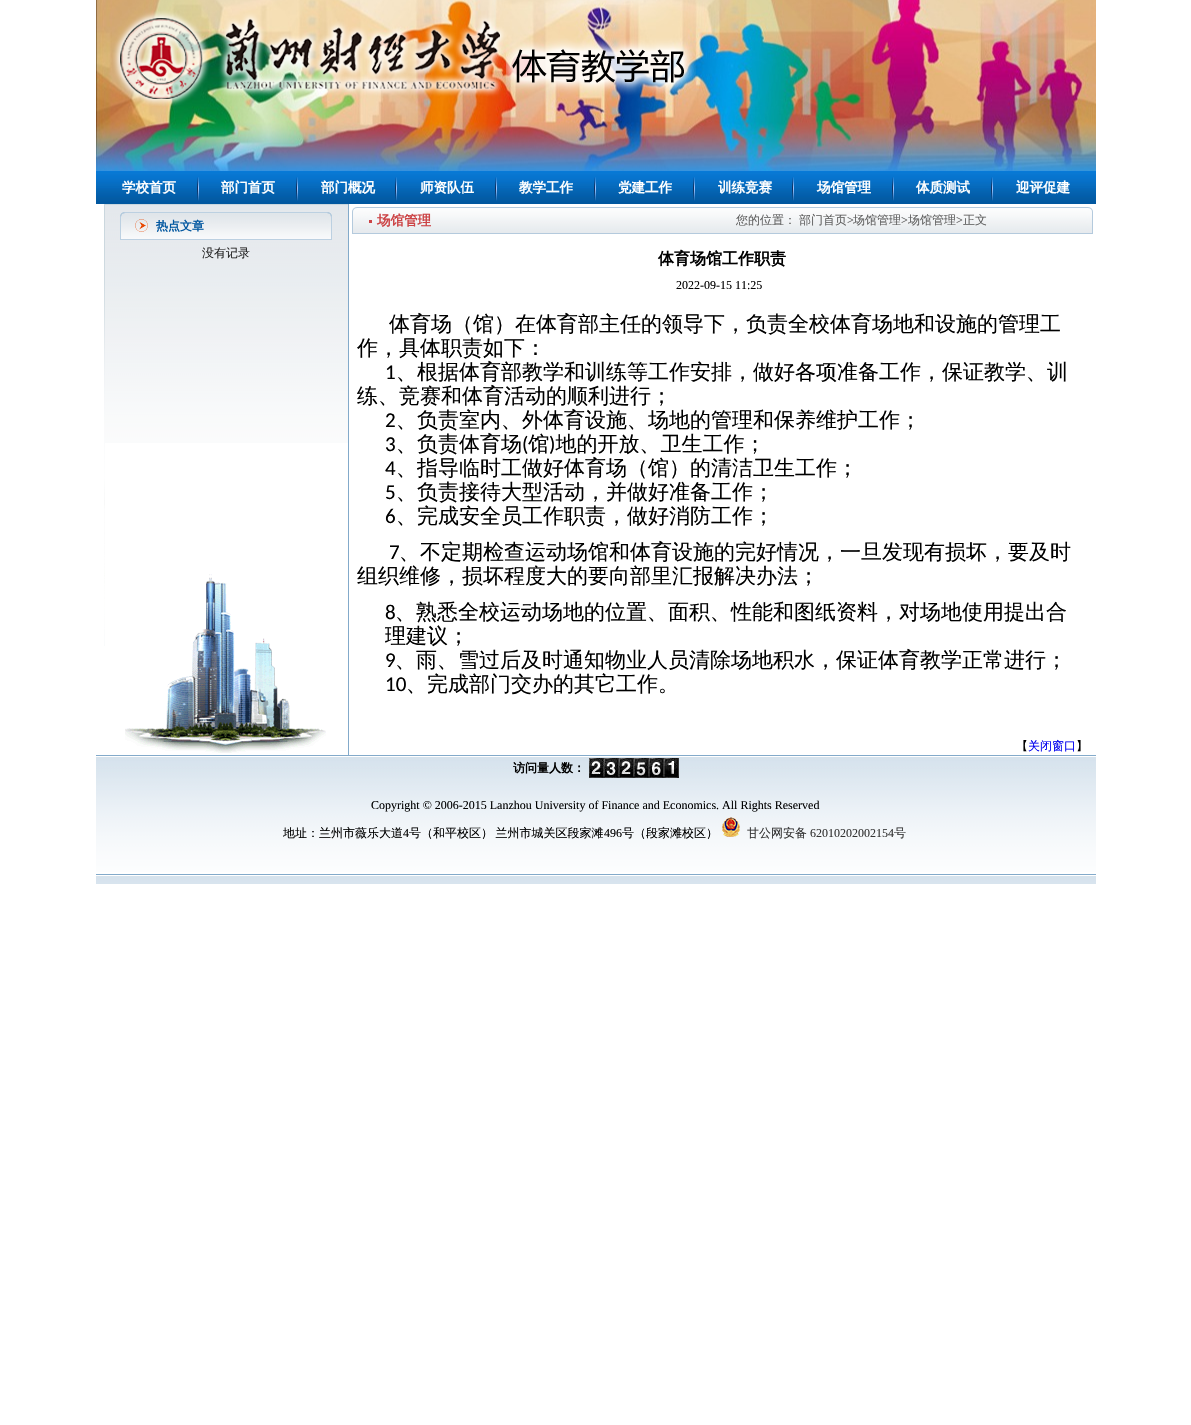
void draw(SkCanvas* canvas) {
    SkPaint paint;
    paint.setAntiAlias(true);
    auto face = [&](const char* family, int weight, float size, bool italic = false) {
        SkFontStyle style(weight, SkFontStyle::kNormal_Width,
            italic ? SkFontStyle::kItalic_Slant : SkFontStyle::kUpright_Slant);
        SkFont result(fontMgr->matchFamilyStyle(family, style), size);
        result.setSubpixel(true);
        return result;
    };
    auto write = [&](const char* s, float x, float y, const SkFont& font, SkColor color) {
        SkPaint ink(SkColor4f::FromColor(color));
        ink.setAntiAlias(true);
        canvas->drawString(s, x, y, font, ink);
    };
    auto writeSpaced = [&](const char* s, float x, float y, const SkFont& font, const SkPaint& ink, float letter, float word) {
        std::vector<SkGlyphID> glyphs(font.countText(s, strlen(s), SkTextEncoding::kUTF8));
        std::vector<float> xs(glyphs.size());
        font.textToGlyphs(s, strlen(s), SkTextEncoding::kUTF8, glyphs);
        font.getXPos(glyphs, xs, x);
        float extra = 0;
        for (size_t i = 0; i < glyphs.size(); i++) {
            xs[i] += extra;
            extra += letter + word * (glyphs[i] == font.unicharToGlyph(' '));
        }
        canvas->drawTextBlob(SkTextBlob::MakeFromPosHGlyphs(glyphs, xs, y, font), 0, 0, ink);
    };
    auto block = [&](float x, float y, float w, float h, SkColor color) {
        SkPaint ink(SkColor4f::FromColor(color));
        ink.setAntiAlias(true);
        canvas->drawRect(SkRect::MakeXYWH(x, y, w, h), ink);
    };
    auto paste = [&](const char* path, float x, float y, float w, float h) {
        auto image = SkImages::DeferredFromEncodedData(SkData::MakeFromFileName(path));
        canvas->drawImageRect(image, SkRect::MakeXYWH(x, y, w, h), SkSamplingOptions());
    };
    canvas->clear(SK_ColorWHITE);
    paste("pic1.png", 96, 0, 1000, 171);
    paste("pic2.png", 113, 11, 583, 95);
    paste("pic3.png", 96, 171, 1000, 33);
    auto kFont1 = face("WenQuanYi Zen Hei", 700, 13.5f);
    write("学校首页", 122, 192, kFont1, SK_ColorWHITE);
    paste("pic4.png", 197, 177, 2, 24);
    write("部门首页", 221, 192, kFont1, SK_ColorWHITE);
    paste("pic4.png", 296, 177, 2, 24);
    write("部门概况", 321, 192, kFont1, SK_ColorWHITE);
    paste("pic4.png", 395, 177, 2, 24);
    write("师资队伍", 420, 192, kFont1, SK_ColorWHITE);
    paste("pic4.png", 495, 177, 2, 24);
    write("教学工作", 519, 192, kFont1, SK_ColorWHITE);
    paste("pic4.png", 594, 177, 2, 24);
    write("党建工作", 618, 192, kFont1, SK_ColorWHITE);
    paste("pic4.png", 693, 177, 2, 24);
    write("训练竞赛", 718, 192, kFont1, SK_ColorWHITE);
    paste("pic4.png", 792, 177, 2, 24);
    write("场馆管理", 817, 192, kFont1, SK_ColorWHITE);
    paste("pic4.png", 892, 177, 2, 24);
    write("体质测试", 916, 192, kFont1, SK_ColorWHITE);
    paste("pic4.png", 991, 177, 2, 24);
    write("迎评促建", 1016, 192, kFont1, SK_ColorWHITE);
    paste("pic5.png", 104, 204, 1, 442);
    paste("pic6.png", 105, 204, 243, 239);
    block(348, 204, 1, 551, SkColorSetRGB(131, 170, 202));
    paste("pic7.png", 120, 212, 36, 28);
    paste("pic8.png", 156, 212, 171, 28);
    auto kFont2 = face("WenQuanYi Zen Hei", 700, 12);
    write("热点文章", 156, 230, kFont2, SkColorSetRGB(1, 87, 160));
    paste("pic9.png", 327, 212, 5, 28);
    auto kFont3 = face("WenQuanYi Zen Hei", 500, 12);
    write("没有记录", 202, 257, kFont3, SkColorSetRGB(34, 34, 34));
    paste("pic10.png", 352, 207, 25, 27);
    paste("pic11.png", 377, 207, 359, 27);
    write("场馆管理", 377, 225, kFont1, SkColorSetRGB(204, 68, 70));
    paste("pic12.png", 736, 207, 350, 27);
    write("您的位置：", 736, 224, kFont3, SkColorSetRGB(96, 96, 96));
    write("部门首页", 799, 224, kFont3, SkColorSetRGB(96, 96, 96));
    auto kFont4 = face("Liberation Serif", 400, 12);
    write(">", 847, 224, kFont4, SkColorSetRGB(96, 96, 96));
    write("场馆管理", 853, 224, kFont3, SkColorSetRGB(96, 96, 96));
    write(">", 901, 224, kFont4, SkColorSetRGB(96, 96, 96));
    write("场馆管理", 908, 224, kFont3, SkColorSetRGB(96, 96, 96));
    write(">", 956, 224, kFont4, SkColorSetRGB(96, 96, 96));
    write("正文", 963, 224, kFont3, SkColorSetRGB(96, 96, 96));
    paste("pic13.png", 1086, 207, 7, 27);
    auto kFont5 = face("WenQuanYi Zen Hei", 700, 16);
    write("体育场馆工作职责", 658, 264, kFont5, SK_ColorBLACK);
    write("2022-09-15 11:25", 676, 289, kFont4, SK_ColorBLACK);
    auto kFont6 = face("WenQuanYi Zen Hei", 500, 21);
    write("体育场（馆）在体育部主任的领导下，负责全校体育场地和设施的管理工", 389, 331, kFont6, SK_ColorBLACK);
    write("作，具体职责如下：", 357, 355, kFont6, SK_ColorBLACK);
    auto kFont7 = face("Carlito", 400, 21);
    write("1", 385, 379, kFont7, SK_ColorBLACK);
    write("、根据体育部教学和训练等工作安排，做好各项准备工作，保证教学、训", 396, 379, kFont6, SK_ColorBLACK);
    write("练、竞赛和体育活动的顺利进行；", 357, 403, kFont6, SK_ColorBLACK);
    write("2", 385, 427, kFont7, SK_ColorBLACK);
    write("、负责室内、外体育设施、场地的管理和保养维护工作；", 396, 427, kFont6, SK_ColorBLACK);
    write("、负责体育场 馆 地的开放、卫生工作；", 396, 451, kFont6, SK_ColorBLACK);
    write("3", 385, 451, kFont7, SK_ColorBLACK);
    write("(", 522, 451, kFont7, SK_ColorBLACK);
    write(")", 549, 451, kFont7, SK_ColorBLACK);
    write("4", 385, 475, kFont7, SK_ColorBLACK);
    write("、指导临时工做好体育场（馆）的清洁卫生工作；", 396, 475, kFont6, SK_ColorBLACK);
    write("5", 385, 499, kFont7, SK_ColorBLACK);
    write("、负责接待大型活动，并做好准备工作；", 396, 499, kFont6, SK_ColorBLACK);
    write("6", 385, 523, kFont7, SK_ColorBLACK);
    write("、完成安全员工作职责，做好消防工作；", 396, 523, kFont6, SK_ColorBLACK);
    write("7", 389, 559, kFont7, SK_ColorBLACK);
    write("、不定期检查运动场馆和体育设施的完好情况，一旦发现有损坏，要及时", 399, 559, kFont6, SK_ColorBLACK);
    write("组织维修，损坏程度大的要向部里汇报解决办法；", 357, 583, kFont6, SK_ColorBLACK);
    write("8", 385, 619, kFont7, SK_ColorBLACK);
    write("、熟悉全校运动场地的位置、面积、性能和图纸资料，对场地使用提出合", 395, 619, kFont6, SK_ColorBLACK);
    write("理建议；", 385, 643, kFont6, SK_ColorBLACK);
    write("9", 385, 667, kFont7, SK_ColorBLACK);
    write("、雨、雪过后及时通知物业人员清除场地积水，保证体育教学正常进行；", 395, 667, kFont6, SK_ColorBLACK);
    write("10", 385, 691, kFont7, SK_ColorBLACK);
    write("、完成部门交办的其它工作。", 406, 691, kFont6, SK_ColorBLACK);
    write("【", 1016, 750, kFont3, SK_ColorBLACK);
    write("关闭窗口", 1028, 750, kFont3, SkColorSetRGB(0, 0, 238));
    write("】", 1076, 750, kFont3, SK_ColorBLACK);
    paste("pic14.png", 125, 574, 201, 179);
    paste("pic15.png", 96, 755, 1000, 129);
    write("访问量人数：", 513, 772, kFont2, SK_ColorBLACK);
    paste("pic16.png", 589, 758, 90, 20);
    write("Copyright © 2006-2015 Lanzhou University of Finance and Economics. All Rights Reserved", 371, 809, kFont4, SK_ColorBLACK);
    write("地址：兰州市薇乐大道", 283, 837, kFont3, SK_ColorBLACK);
    write("4", 403, 837, kFont4, SK_ColorBLACK);
    paint.setColor(SK_ColorBLACK);
    writeSpaced("号（和平校区） 兰州市城关区段家滩", 409, 837, kFont3, paint, 0, -1);
    write("496", 604, 837, kFont4, SK_ColorBLACK);
    write("号（段家滩校区）", 622, 837, kFont3, SK_ColorBLACK);
    paste("pic17.png", 722, 817, 18, 20);
    write("甘公网安备", 747, 837, kFont3, SkColorSetRGB(51, 51, 51));
    write("62010202002154", 810, 837, kFont4, SkColorSetRGB(51, 51, 51));
    write("号", 894, 837, kFont3, SkColorSetRGB(51, 51, 51));
}
